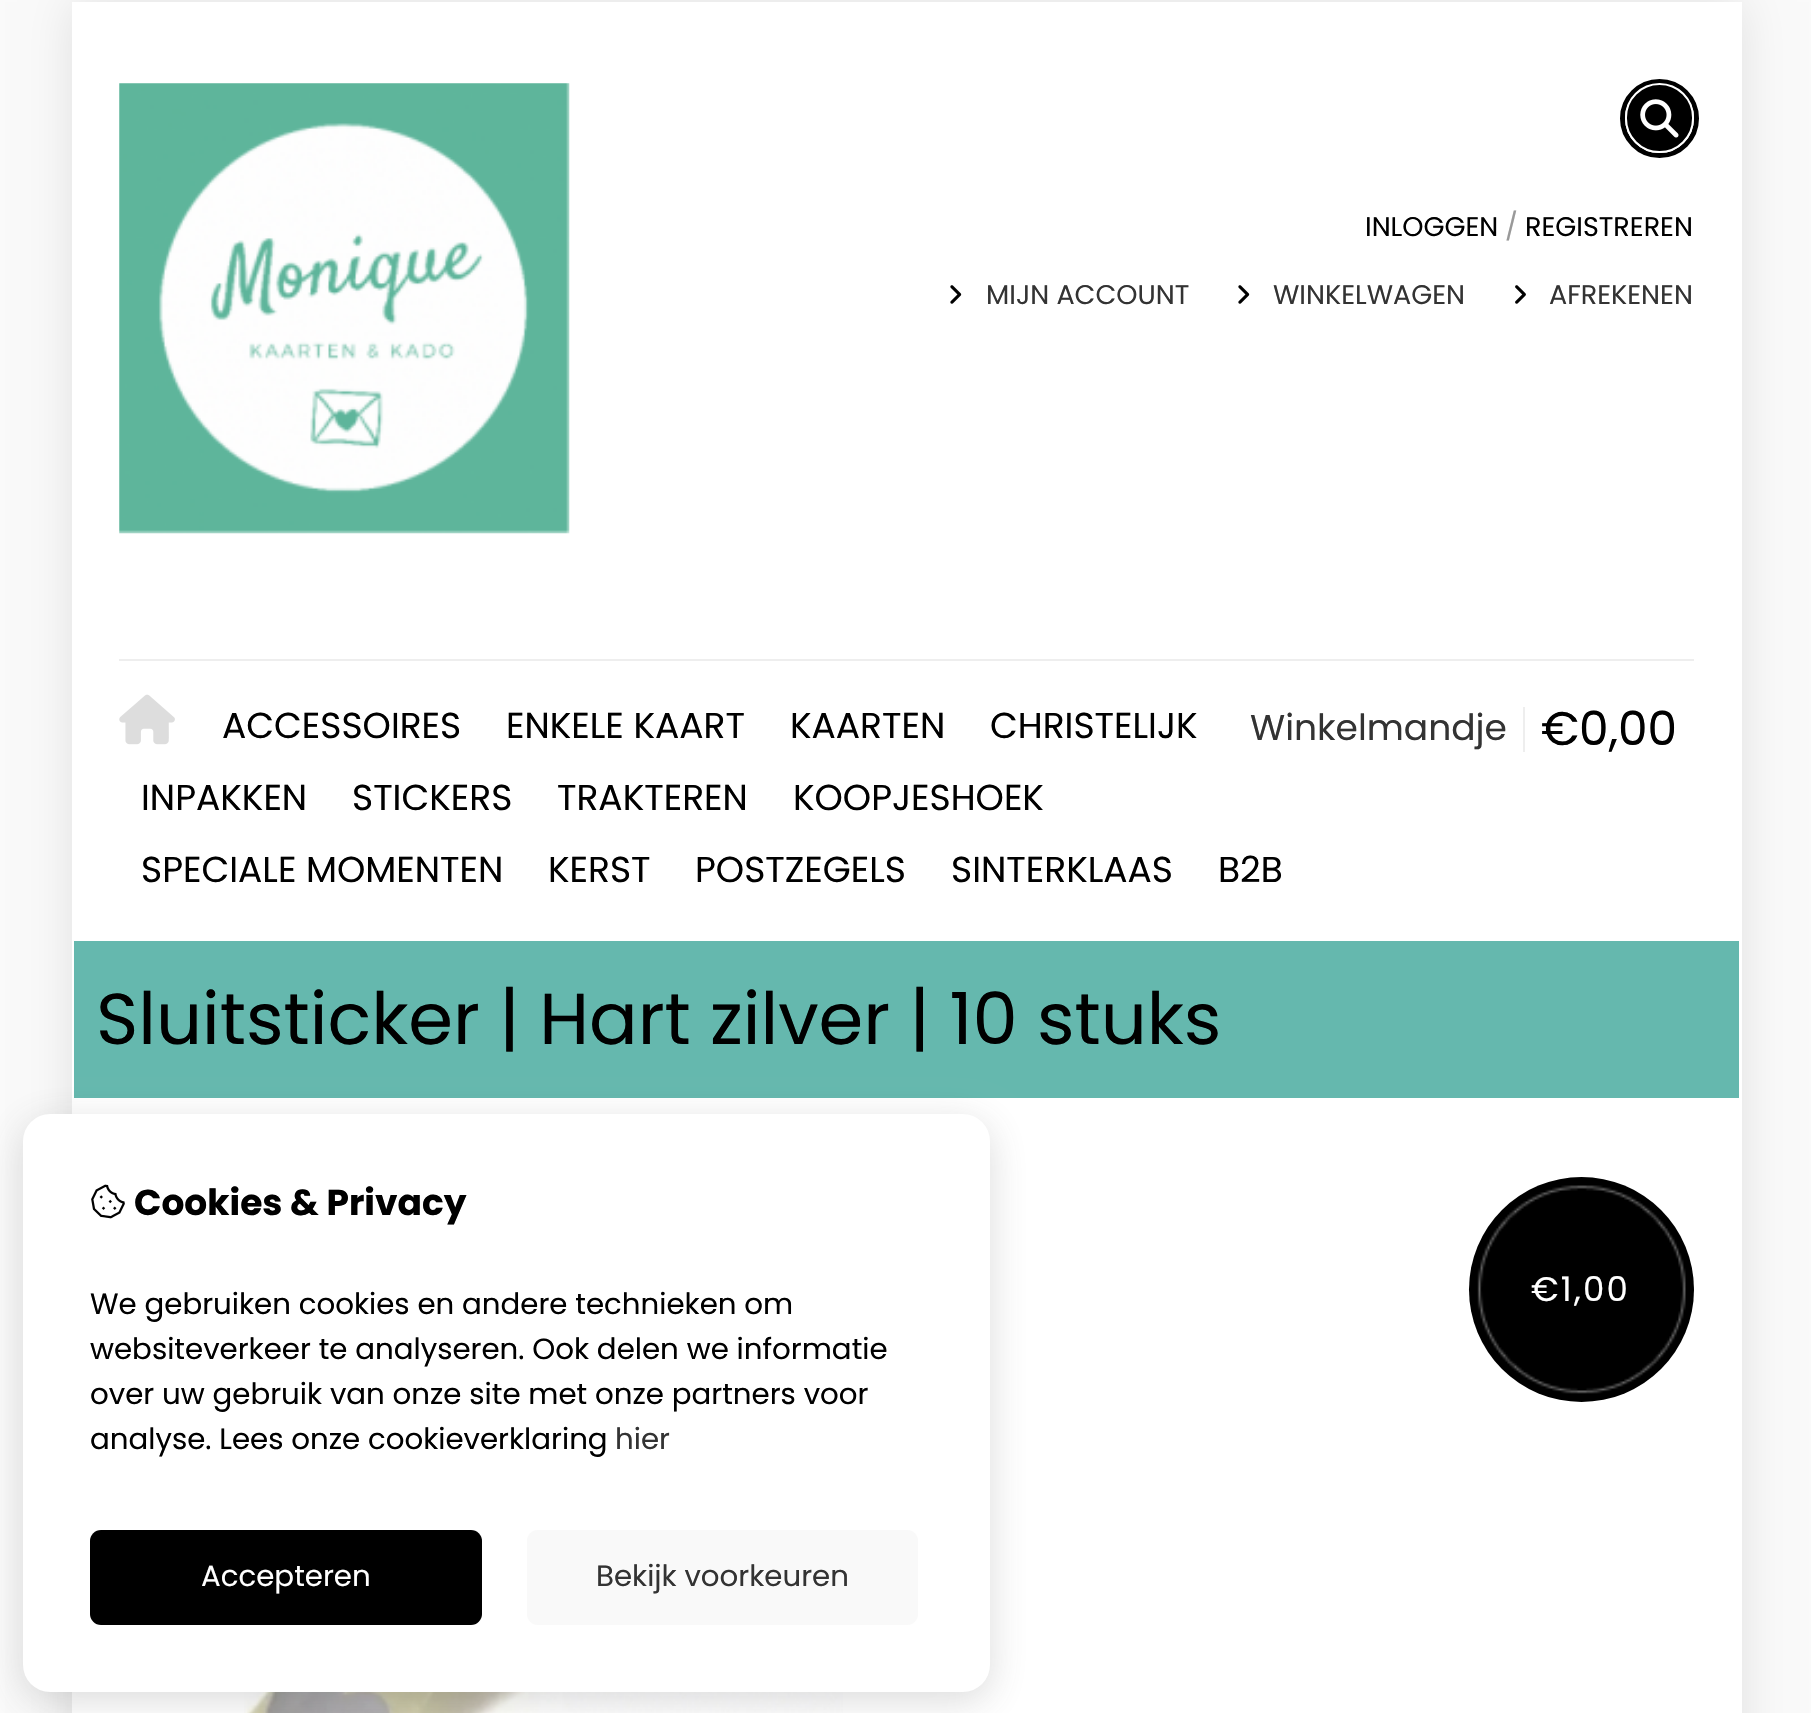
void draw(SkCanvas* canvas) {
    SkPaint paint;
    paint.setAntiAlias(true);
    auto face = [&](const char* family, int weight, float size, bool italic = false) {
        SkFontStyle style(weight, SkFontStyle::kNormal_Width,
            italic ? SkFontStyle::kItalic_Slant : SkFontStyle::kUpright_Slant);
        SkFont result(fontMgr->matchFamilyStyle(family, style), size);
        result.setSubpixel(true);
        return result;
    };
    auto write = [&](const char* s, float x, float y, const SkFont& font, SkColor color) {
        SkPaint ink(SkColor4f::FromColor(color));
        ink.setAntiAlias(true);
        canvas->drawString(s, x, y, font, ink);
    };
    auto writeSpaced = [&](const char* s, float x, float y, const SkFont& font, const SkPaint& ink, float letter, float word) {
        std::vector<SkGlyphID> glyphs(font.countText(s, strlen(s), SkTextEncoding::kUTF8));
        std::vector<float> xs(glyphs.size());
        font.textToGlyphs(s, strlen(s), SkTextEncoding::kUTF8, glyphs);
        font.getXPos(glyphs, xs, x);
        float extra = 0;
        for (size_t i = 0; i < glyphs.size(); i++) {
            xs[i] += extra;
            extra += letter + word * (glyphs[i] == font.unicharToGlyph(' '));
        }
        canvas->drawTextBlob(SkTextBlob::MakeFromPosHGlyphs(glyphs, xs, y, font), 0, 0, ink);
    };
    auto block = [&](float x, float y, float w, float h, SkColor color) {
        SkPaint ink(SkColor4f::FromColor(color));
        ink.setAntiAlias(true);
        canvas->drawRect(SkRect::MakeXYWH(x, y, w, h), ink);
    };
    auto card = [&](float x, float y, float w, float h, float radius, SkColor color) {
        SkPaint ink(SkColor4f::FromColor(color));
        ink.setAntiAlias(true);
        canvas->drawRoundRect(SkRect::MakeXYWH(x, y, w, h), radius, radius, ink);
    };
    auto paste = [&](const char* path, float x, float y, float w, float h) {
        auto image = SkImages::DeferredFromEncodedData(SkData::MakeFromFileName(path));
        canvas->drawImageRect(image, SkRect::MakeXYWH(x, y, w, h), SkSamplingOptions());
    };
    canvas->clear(SkColorSetRGB(250, 250, 250));
    paint.setColor(SkColorSetARGB(26, 0, 0, 0));
    paint.setMaskFilter(SkMaskFilter::MakeBlur(kNormal_SkBlurStyle, 22.5f));
    canvas->drawRect(SkRect::MakeXYWH(72, 2, 1670, 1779), paint);
    paint.setMaskFilter(nullptr);
    block(72, 2, 1670, 1711, SK_ColorWHITE);
    paste("pic1.png", 119, 83, 451, 451);
    paint.setStyle(SkPaint::kStroke_Style);
    paint.setStrokeWidth(5);
    paint.setColor(SK_ColorBLACK);
    canvas->drawCircle(1659.5f, 118.5f, 37, paint);
    paint.setStyle(SkPaint::kFill_Style);
    canvas->drawRoundRect(SkRect::MakeXYWH(1626, 84, 67, 68), 33.5f, 33.5f, paint);
    paint.setStyle(SkPaint::kStroke_Style);
    paint.setStrokeWidth(2);
    paint.setColor(SK_ColorWHITE);
    canvas->drawRoundRect(SkRect::MakeXYWH(1626, 84, 67, 68), 33.5f, 33.5f, paint);
    paste("pic2.png", 1640, 99, 39, 39);
    auto kFont1 = face("Poppins", 400, 27);
    write("INLOGGEN", 1365, 236, kFont1, SK_ColorBLACK);
    write("/", 1505, 236, kFont1, SkColorSetRGB(153, 153, 153));
    write("REGISTREREN", 1525, 236, kFont1, SK_ColorBLACK);
    paste("pic3.png", 950, 285, 12, 19);
    write("MIJN ACCOUNT", 986, 304, kFont1, SkColorSetRGB(51, 51, 51));
    paste("pic3.png", 1238, 285, 12, 19);
    write("WINKELWAGEN", 1273, 304, kFont1, SkColorSetRGB(51, 51, 51));
    paste("pic4.png", 1515, 285, 11, 19);
    write("AFREKENEN", 1549, 304, kFont1, SkColorSetRGB(51, 51, 51));
    block(119, 659, 1575, 2, SkColorSetRGB(238, 238, 238));
    paste("pic5.png", 119, 694, 56, 51);
    auto kFont2 = face("Poppins", 400, 36);
    write("ACCESSOIRES", 222, 738, kFont2, SK_ColorBLACK);
    write("ENKELE KAART", 506, 738, kFont2, SK_ColorBLACK);
    write("KAARTEN", 790, 738, kFont2, SK_ColorBLACK);
    write("CHRISTELIJK", 990, 738, kFont2, SK_ColorBLACK);
    write("INPAKKEN", 141, 810, kFont2, SK_ColorBLACK);
    write("STICKERS", 352, 810, kFont2, SK_ColorBLACK);
    write("TRAKTEREN", 557, 810, kFont2, SK_ColorBLACK);
    write("KOOPJESHOEK", 793, 810, kFont2, SK_ColorBLACK);
    write("SPECIALE MOMENTEN", 141, 882, kFont2, SK_ColorBLACK);
    write("KERST", 548, 882, kFont2, SK_ColorBLACK);
    write("POSTZEGELS", 695, 882, kFont2, SK_ColorBLACK);
    write("SINTERKLAAS", 951, 882, kFont2, SK_ColorBLACK);
    write("B2B", 1218, 882, kFont2, SK_ColorBLACK);
    block(1523, 707, 2, 45, SkColorSetRGB(238, 238, 238));
    write("Winkelmandje", 1250, 740, kFont2, SkColorSetRGB(51, 51, 51));
    auto kFont3 = face("Poppins", 400, 47);
    write("€0,00", 1541, 745, kFont3, SK_ColorBLACK);
    block(74, 941, 1665, 157, SkColorSetRGB(101, 184, 174));
    auto kFont4 = face("Poppins", 400, 72);
    write("Sluitsticker | Hart zilver | 10 stuks", 96, 1044, kFont4, SK_ColorBLACK);
    paint.setStyle(SkPaint::kFill_Style);
    paint.setColor(SK_ColorBLACK);
    canvas->drawCircle(1581.5f, 1289.5f, 112.5f, paint);
    paste("pic6.png", 1477, 1185, 209, 209);
    auto kFont5 = face("Poppins", 400, 34);
    paint.setColor(SK_ColorWHITE);
    writeSpaced("€1,00", 1531, 1301, kFont5, paint, 2.25f, 0);
    paste("pic7.png", 244, 1692, 599, 21);
    paint.setColor(SkColorSetARGB(51, 76, 76, 76));
    paint.setMaskFilter(SkMaskFilter::MakeBlur(kNormal_SkBlurStyle, 19));
    canvas->drawRoundRect(SkRect::MakeXYWH(23, 1123, 967, 578), 27, 27, paint);
    paint.setMaskFilter(nullptr);
    card(23, 1114, 967, 578, 27, SK_ColorWHITE);
    paste("pic8.png", 91, 1184, 34, 35);
    auto kFont6 = face("Poppins", 700, 36);
    write("Cookies & Privacy", 134, 1215, kFont6, SK_ColorBLACK);
    auto kFont7 = face("Poppins", 400, 29.25f);
    write("We gebruiken cookies en andere technieken om", 90, 1314, kFont7, SK_ColorBLACK);
    write("websiteverkeer te analyseren. Ook delen we informatie", 90, 1359, kFont7, SK_ColorBLACK);
    write("over uw gebruik van onze site met onze partners voor", 90, 1404, kFont7, SK_ColorBLACK);
    write("analyse. Lees onze cookieverklaring", 90, 1449, kFont7, SK_ColorBLACK);
    write("hier", 615, 1449, kFont7, SkColorSetRGB(51, 51, 51));
    card(90, 1530, 392, 95, 11, SK_ColorBLACK);
    write("Accepteren", 201, 1586, kFont7, SK_ColorWHITE);
    card(527, 1530, 391, 95, 11, SkColorSetRGB(249, 249, 249));
    write("Bekijk voorkeuren", 596, 1586, kFont7, SkColorSetRGB(51, 51, 51));
}
